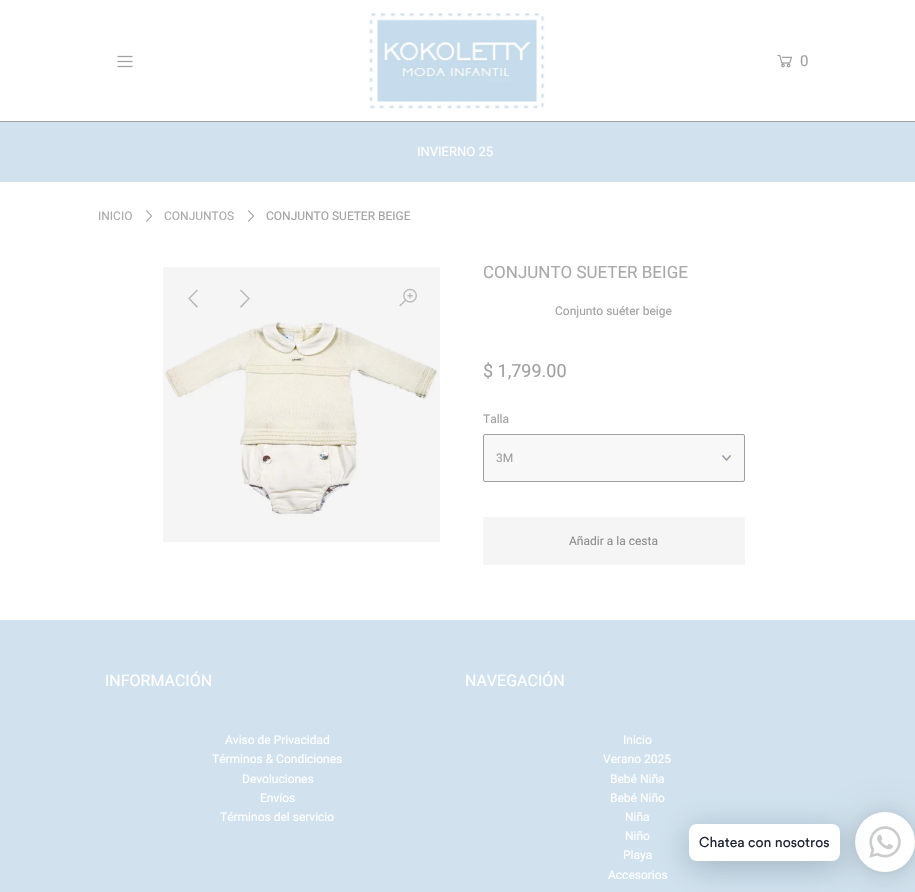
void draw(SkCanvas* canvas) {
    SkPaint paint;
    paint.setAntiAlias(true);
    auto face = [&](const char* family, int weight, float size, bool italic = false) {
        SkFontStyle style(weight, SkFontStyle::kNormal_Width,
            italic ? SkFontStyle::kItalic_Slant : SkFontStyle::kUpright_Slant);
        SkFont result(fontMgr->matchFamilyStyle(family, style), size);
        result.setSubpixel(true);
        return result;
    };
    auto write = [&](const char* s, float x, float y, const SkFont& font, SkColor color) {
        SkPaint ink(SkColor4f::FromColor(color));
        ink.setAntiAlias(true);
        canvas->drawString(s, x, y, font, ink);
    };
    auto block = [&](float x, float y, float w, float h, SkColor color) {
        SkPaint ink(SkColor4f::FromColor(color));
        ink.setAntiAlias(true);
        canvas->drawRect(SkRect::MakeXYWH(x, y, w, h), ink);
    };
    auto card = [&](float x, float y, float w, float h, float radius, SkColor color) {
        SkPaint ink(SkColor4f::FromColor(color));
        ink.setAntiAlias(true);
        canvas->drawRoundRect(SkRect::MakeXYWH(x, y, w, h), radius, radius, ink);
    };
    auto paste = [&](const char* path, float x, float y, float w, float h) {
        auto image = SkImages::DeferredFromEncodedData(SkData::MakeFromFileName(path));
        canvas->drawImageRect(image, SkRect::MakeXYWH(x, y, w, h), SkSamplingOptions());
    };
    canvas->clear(SK_ColorWHITE);
    paste("pic1.png", 117, 55, 16, 13);
    paste("pic2.png", 369, 13, 176, 97);
    paste("pic3.png", 777, 54, 16, 14);
    auto kFont1 = face("Roboto", 400, 15);
    write("0", 800, 66, kFont1, SkColorSetRGB(160, 160, 160));
    block(0, 122, 915, 60, SkColorSetRGB(209, 226, 238));
    block(0, 121, 915, 1, SkColorSetRGB(160, 160, 160));
    auto kFont2 = face("Roboto", 400, 13);
    write("INVIERNO 25", 417, 156, kFont2, SK_ColorWHITE);
    auto kFont3 = face("Roboto", 400, 12);
    write("INICIO", 98, 220, kFont3, SkColorSetRGB(169, 169, 169));
    paste("pic4.png", 145, 210, 8, 12);
    write("CONJUNTOS", 164, 220, kFont3, SkColorSetRGB(169, 169, 169));
    paste("pic4.png", 247, 210, 8, 12);
    write("CONJUNTO SUETER BEIGE", 266, 220, kFont3, SkColorSetRGB(160, 160, 160));
    paste("pic5.png", 163, 267, 277, 275);
    paste("pic6.png", 399, 288, 18, 19);
    paint.setColor(SkColorSetRGB(186, 186, 186));
    canvas->drawPath(SkPathBuilder().moveTo(197, 289.5f).lineTo(198, 290.5f).lineTo(190, 298.5f).lineTo(198, 306.5f).lineTo(197, 308).lineTo(188, 298.5f).close().moveTo(241, 289.5f).lineTo(250, 298.5f).lineTo(241, 308).lineTo(240, 306.5f).lineTo(248, 298.5f).lineTo(240, 290.5f).close().detach(), paint);
    auto kFont4 = face("Roboto", 400, 17);
    write("CONJUNTO SUETER BEIGE", 483, 278, kFont4, SkColorSetRGB(169, 169, 169));
    write("Conjunto suéter beige", 555, 315, kFont3, SkColorSetRGB(160, 160, 160));
    auto kFont5 = face("Roboto", 400, 18);
    write("$ 1,799.00", 483, 377, kFont5, SkColorSetRGB(160, 160, 160));
    write("Talla", 483, 423, kFont3, SkColorSetRGB(160, 160, 160));
    card(483, 434, 262, 48, 2, SkColorSetRGB(248, 248, 248));
    paste("pic7.png", 722, 455, 9, 6);
    paint.setStyle(SkPaint::kStroke_Style);
    paint.setStrokeWidth(1);
    paint.setColor(SkColorSetRGB(160, 160, 160));
    canvas->drawRoundRect(SkRect::MakeXYWH(483.5f, 434.5f, 261, 47), 1.5f, 1.5f, paint);
    write("3M", 496, 462, kFont3, SkColorSetRGB(160, 160, 160));
    block(483, 517, 262, 48, SkColorSetRGB(245, 245, 245));
    write("Añadir a la cesta", 569, 545, kFont3, SkColorSetRGB(141, 141, 141));
    block(0, 620, 915, 272, SkColorSetRGB(209, 226, 238));
    auto kFont6 = face("Roboto", 400, 16);
    write("INFORMACIÓN", 105, 686, kFont6, SK_ColorWHITE);
    write("Aviso de Privacidad", 225, 744, kFont3, SK_ColorWHITE);
    write("Términos & Condiciones", 212, 763, kFont3, SK_ColorWHITE);
    write("Devoluciones", 242, 783, kFont3, SK_ColorWHITE);
    write("Envíos", 260, 802, kFont3, SK_ColorWHITE);
    write("Términos del servicio", 220, 821, kFont3, SK_ColorWHITE);
    write("NAVEGACIÓN", 465, 686, kFont6, SK_ColorWHITE);
    write("Inicio", 623, 744, kFont3, SK_ColorWHITE);
    write("Verano 2025", 603, 763, kFont3, SK_ColorWHITE);
    write("Bebé Niña", 610, 783, kFont3, SK_ColorWHITE);
    write("Bebé Niño", 610, 802, kFont3, SK_ColorWHITE);
    write("Niña", 625, 821, kFont3, SK_ColorWHITE);
    write("Niño", 625, 840, kFont3, SK_ColorWHITE);
    write("Playa", 623, 859, kFont3, SK_ColorWHITE);
    write("Accesorios", 608, 879, kFont3, SK_ColorWHITE);
    paint.setStyle(SkPaint::kFill_Style);
    paint.setColor(SkColorSetARGB(41, 0, 0, 0));
    paint.setMaskFilter(SkMaskFilter::MakeBlur(kNormal_SkBlurStyle, 16));
    canvas->drawRoundRect(SkRect::MakeXYWH(855, 814, 60, 60), 30, 30, paint);
    paint.setMaskFilter(nullptr);
    paint.setColor(SkColorSetARGB(15, 0, 0, 0));
    paint.setMaskFilter(SkMaskFilter::MakeBlur(kNormal_SkBlurStyle, 3));
    canvas->drawRoundRect(SkRect::MakeXYWH(855, 813, 60, 60), 30, 30, paint);
    paint.setMaskFilter(nullptr);
    paint.setColor(SK_ColorWHITE);
    canvas->drawCircle(885, 842, 30, paint);
    paint.setColor(SkColorSetARGB(61, 0, 18, 46));
    paint.setMaskFilter(SkMaskFilter::MakeBlur(kNormal_SkBlurStyle, 16));
    canvas->drawRoundRect(SkRect::MakeXYWH(689, 830, 151, 37), 8, 8, paint);
    paint.setMaskFilter(nullptr);
    card(689, 824, 151, 37, 8, SK_ColorWHITE);
    auto kFont7 = face("Circular", 400, 14);
    write("Chatea con nosotros", 699, 847, kFont7, SkColorSetRGB(30, 36, 51));
    paste("pic8.png", 869, 826, 32, 32);
}
